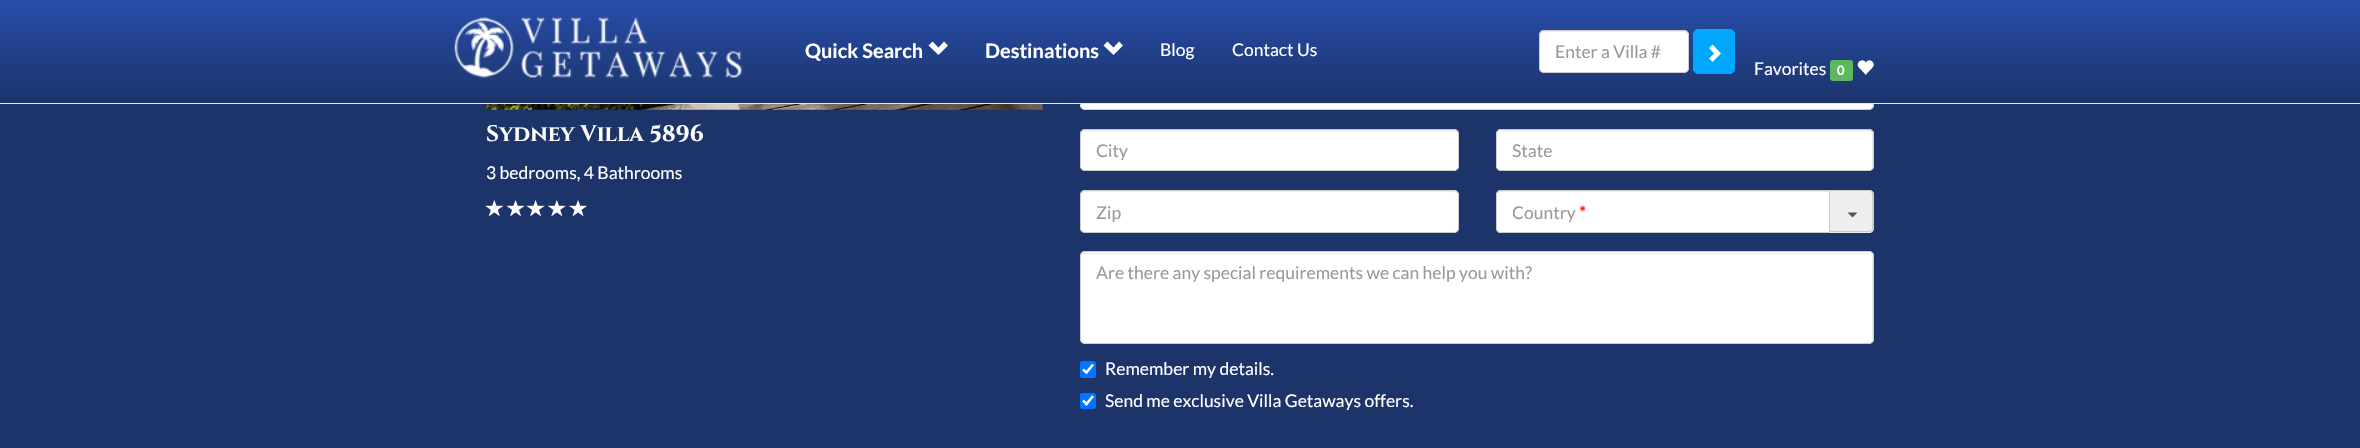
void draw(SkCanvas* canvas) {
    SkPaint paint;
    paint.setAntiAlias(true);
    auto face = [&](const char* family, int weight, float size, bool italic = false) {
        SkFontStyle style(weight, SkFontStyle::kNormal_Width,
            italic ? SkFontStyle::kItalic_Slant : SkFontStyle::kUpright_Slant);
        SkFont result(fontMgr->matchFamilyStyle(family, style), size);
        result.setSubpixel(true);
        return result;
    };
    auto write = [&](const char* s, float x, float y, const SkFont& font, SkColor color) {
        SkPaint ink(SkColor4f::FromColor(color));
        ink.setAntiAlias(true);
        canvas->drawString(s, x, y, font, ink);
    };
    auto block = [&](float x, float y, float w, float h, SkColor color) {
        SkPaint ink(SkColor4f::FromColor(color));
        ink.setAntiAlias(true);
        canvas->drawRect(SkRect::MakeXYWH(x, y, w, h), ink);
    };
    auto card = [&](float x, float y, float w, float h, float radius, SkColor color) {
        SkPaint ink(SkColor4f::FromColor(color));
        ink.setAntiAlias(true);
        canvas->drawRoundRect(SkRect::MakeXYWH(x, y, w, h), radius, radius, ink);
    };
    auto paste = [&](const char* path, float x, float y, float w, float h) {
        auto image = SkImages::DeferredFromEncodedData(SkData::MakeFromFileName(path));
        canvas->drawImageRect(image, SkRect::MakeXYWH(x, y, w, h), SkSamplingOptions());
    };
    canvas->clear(SkColorSetRGB(28, 52, 106));
    card(1080, 68, 794, 42, 5, SK_ColorWHITE);
    paint.setColor(SkColorSetRGB(236, 236, 236));
    canvas->drawPath(SkPathBuilder().moveTo(1085, 70).lineTo(1869, 70).cubicTo(1871, 70, 1872, 72, 1872, 74).lineTo(1872, 108).cubicTo(1872, 107, 1873, 106, 1873, 105).lineTo(1873, 73).cubicTo(1873, 71, 1871, 69, 1869, 69).lineTo(1085, 69).cubicTo(1083, 69, 1081, 71, 1081, 73).lineTo(1081, 74).cubicTo(1081, 72, 1083, 70, 1085, 70).close().detach(), paint);
    paint.setStyle(SkPaint::kStroke_Style);
    paint.setStrokeWidth(1);
    paint.setColor(SkColorSetRGB(204, 204, 204));
    canvas->drawRoundRect(SkRect::MakeXYWH(1080.5f, 68.5f, 793, 41), 4.5f, 4.5f, paint);
    paint.setStyle(SkPaint::kFill_Style);
    {
        const SkColor colors[] = {SkColorSetRGB(40, 77, 170), SkColorSetRGB(28, 52, 106)};
        const float stops[] = {0, 1};
        const SkPoint ends[] = {{1180, 0}, {1180, 103}};
        paint.setShader(SkGradientShader::MakeLinear(ends, colors, stops, 2, SkTileMode::kClamp));
        paint.setAlpha(255);
    }
    canvas->drawRect(SkRect::MakeXYWH(0, 0, 2360, 103), paint);
    block(0, 103, 2360, 1, SkColorSetRGB(231, 231, 231));
    paste("pic1.png", 453, 17, 290, 61);
    auto kFont1 = face("Lato", 700, 20);
    write("Quick Search", 805, 58, kFont1, SK_ColorWHITE);
    paint.setShader(nullptr);
    paint.setColor(SK_ColorWHITE);
    canvas->drawPath(SkPathBuilder().moveTo(928.5f, 45.5f).lineTo(938.5f, 55).lineTo(948, 45.5f).lineTo(944, 41.5f).lineTo(938.5f, 47.5f).lineTo(932.5f, 41.5f).close().detach(), paint);
    write("Destinations", 985, 58, kFont1, SK_ColorWHITE);
    canvas->drawPath(SkPathBuilder().moveTo(1103.5f, 45.5f).lineTo(1113.5f, 55).lineTo(1123, 45.5f).lineTo(1119, 41.5f).lineTo(1113.5f, 47.5f).lineTo(1107.5f, 41.5f).close().detach(), paint);
    auto kFont2 = face("Lato", 400, 17.5f);
    write("Blog", 1160, 56, kFont2, SK_ColorWHITE);
    write("Contact Us", 1232, 56, kFont2, SK_ColorWHITE);
    card(1539, 30, 150, 43, 5, SK_ColorWHITE);
    paint.setColor(SkColorSetRGB(236, 236, 236));
    canvas->drawPath(SkPathBuilder().moveTo(1544, 32).lineTo(1684, 32).cubicTo(1686, 32, 1688, 34, 1688, 36).cubicTo(1688, 34, 1687, 32, 1685, 31).lineTo(1544, 31).cubicTo(1541, 31, 1540, 33, 1540, 36).cubicTo(1540, 34, 1542, 32, 1544, 32).close().detach(), paint);
    paint.setStyle(SkPaint::kStroke_Style);
    paint.setColor(SkColorSetRGB(204, 204, 204));
    canvas->drawRoundRect(SkRect::MakeXYWH(1539.5f, 30.5f, 149, 42), 4.5f, 4.5f, paint);
    write("Enter a Villa #", 1555, 58, kFont2, SkColorSetRGB(153, 153, 153));
    paint.setStyle(SkPaint::kFill_Style);
    paint.setColor(SkColorSetRGB(0, 167, 253));
    canvas->drawRoundRect(SkRect::MakeXYWH(1693.5f, 29.5f, 41, 44), 4.5f, 4.5f, paint);
    paint.setStyle(SkPaint::kStroke_Style);
    canvas->drawRoundRect(SkRect::MakeXYWH(1693.5f, 29.5f, 41, 44), 4.5f, 4.5f, paint);
    paint.setStyle(SkPaint::kFill_Style);
    paint.setColor(SK_ColorWHITE);
    canvas->drawPath(SkPathBuilder().moveTo(1709, 58.5f).lineTo(1714, 53.5f).lineTo(1709, 48).lineTo(1712.5f, 44.5f).lineTo(1721, 53.5f).lineTo(1712.5f, 62).close().detach(), paint);
    write("Favorites", 1754, 75, kFont2, SK_ColorWHITE);
    card(1830, 60, 23, 21, 3, SkColorSetRGB(92, 184, 92));
    auto kFont3 = face("Lato", 700, 13);
    write("0", 1837, 75, kFont3, SK_ColorWHITE);
    paste("pic2.png", 1857, 60, 17, 15);
    paste("pic3.png", 486, 104, 557, 6);
    auto kFont4 = face("Cinzel", 700, 22.5f);
    write("Sydney Villa 5896", 486, 141, kFont4, SK_ColorWHITE);
    write("3 bedrooms, 4 Bathrooms", 486, 179, kFont2, SK_ColorWHITE);
    paste("pic4.png", 485, 200, 19, 17);
    paste("pic5.png", 506, 200, 19, 17);
    paste("pic5.png", 526, 200, 19, 17);
    paste("pic6.png", 547, 200, 19, 17);
    paste("pic7.png", 569, 200, 18, 17);
    card(1080, 129, 379, 42, 5, SK_ColorWHITE);
    paint.setColor(SkColorSetRGB(236, 236, 236));
    canvas->drawPath(SkPathBuilder().moveTo(1085, 131).lineTo(1454, 131).cubicTo(1456, 131, 1458, 133, 1458, 135).cubicTo(1458, 132, 1457, 130, 1454, 130).lineTo(1085, 130).cubicTo(1082, 130, 1081, 132, 1081, 135).cubicTo(1081, 133, 1083, 131, 1085, 131).close().detach(), paint);
    paint.setStyle(SkPaint::kStroke_Style);
    paint.setColor(SkColorSetRGB(204, 204, 204));
    canvas->drawRoundRect(SkRect::MakeXYWH(1080.5f, 129.5f, 378, 41), 4.5f, 4.5f, paint);
    write("City", 1096, 157, kFont2, SkColorSetRGB(153, 153, 153));
    card(1496, 129, 378, 42, 5, SK_ColorWHITE);
    paint.setStyle(SkPaint::kFill_Style);
    paint.setColor(SkColorSetRGB(236, 236, 236));
    canvas->drawPath(SkPathBuilder().moveTo(1501, 131).lineTo(1869, 131).cubicTo(1871, 131, 1872, 133, 1872, 135).lineTo(1872, 169).cubicTo(1873, 168, 1873, 167, 1873, 166).lineTo(1873, 134).cubicTo(1873, 132, 1871, 130, 1869, 130).lineTo(1502, 130).cubicTo(1500, 130, 1498, 132, 1498, 134).lineTo(1498, 135).cubicTo(1498, 133, 1499, 131, 1501, 131).close().detach(), paint);
    paint.setStyle(SkPaint::kStroke_Style);
    paint.setColor(SkColorSetRGB(204, 204, 204));
    canvas->drawRoundRect(SkRect::MakeXYWH(1496.5f, 129.5f, 377, 41), 4.5f, 4.5f, paint);
    write("State", 1512, 157, kFont2, SkColorSetRGB(153, 153, 153));
    card(1080, 190, 379, 43, 5, SK_ColorWHITE);
    paint.setStyle(SkPaint::kFill_Style);
    paint.setColor(SkColorSetRGB(236, 236, 236));
    canvas->drawPath(SkPathBuilder().moveTo(1085, 192).lineTo(1454, 192).cubicTo(1456, 192, 1458, 194, 1458, 196).cubicTo(1458, 193, 1457, 191, 1454, 191).lineTo(1085, 191).cubicTo(1082, 191, 1081, 193, 1081, 196).cubicTo(1081, 194, 1083, 192, 1085, 192).close().detach(), paint);
    paint.setStyle(SkPaint::kStroke_Style);
    paint.setColor(SkColorSetRGB(204, 204, 204));
    canvas->drawRoundRect(SkRect::MakeXYWH(1080.5f, 190.5f, 378, 42), 4.5f, 4.5f, paint);
    write("Zip", 1096, 219, kFont2, SkColorSetRGB(153, 153, 153));
    paint.setStyle(SkPaint::kFill_Style);
    paint.setColor(SK_ColorWHITE);
    canvas->drawPath(SkPathBuilder().moveTo(1501, 190).lineTo(1830, 190).lineTo(1830, 233).lineTo(1501, 233).cubicTo(1498, 233, 1496, 231, 1496, 228).lineTo(1496, 195).cubicTo(1496, 192, 1498, 190, 1501, 190).close().detach(), paint);
    paste("pic8.png", 1578, 204, 9, 9);
    paint.setColor(SkColorSetRGB(236, 236, 236));
    canvas->drawPath(SkPathBuilder().moveTo(1501, 192).lineTo(1829, 192).lineTo(1829, 191).lineTo(1502, 191).cubicTo(1499, 191, 1498, 193, 1498, 196).cubicTo(1498, 194, 1499, 192, 1501, 192).close().detach(), paint);
    paint.setStyle(SkPaint::kStroke_Style);
    paint.setColor(SkColorSetRGB(204, 204, 204));
    canvas->drawPath(SkPathBuilder().moveTo(1501, 190.5f).lineTo(1829.5f, 190.5f).lineTo(1829.5f, 232.5f).lineTo(1501, 232.5f).cubicTo(1498.5f, 232.5f, 1496.5f, 230.5f, 1496.5f, 228).lineTo(1496.5f, 195).cubicTo(1496.5f, 192.5f, 1498.5f, 190.5f, 1501, 190.5f).close().detach(), paint);
    canvas->save();
    canvas->clipRect(SkRect::MakeXYWH(1513, 201, 301, 22));
    write("Country", 1512, 219, kFont2, SkColorSetRGB(153, 153, 153));
    canvas->restore();
    paint.setStyle(SkPaint::kFill_Style);
    paint.setColor(SkColorSetRGB(238, 238, 238));
    canvas->drawPath(SkPathBuilder().moveTo(1830, 190).lineTo(1869, 190).cubicTo(1872, 190, 1874, 192, 1874, 195).lineTo(1874, 228).cubicTo(1874, 231, 1872, 233, 1869, 233).lineTo(1830, 233).close().detach(), paint);
    paint.setColor(SkColorSetRGB(204, 204, 204));
    canvas->drawPath(SkPathBuilder(SkPathFillType::kEvenOdd).moveTo(1830, 190).lineTo(1869, 190).cubicTo(1872, 190, 1874, 192, 1874, 195).lineTo(1874, 228).cubicTo(1874, 230, 1872, 232, 1869, 232).lineTo(1830, 232).close().moveTo(1830, 191).lineTo(1869, 191).cubicTo(1871, 191, 1872, 193, 1872, 195).lineTo(1872, 228).cubicTo(1872, 230, 1871, 231, 1869, 231).lineTo(1830, 231).close().detach(), paint);
    paint.setColor(SkColorSetRGB(85, 85, 85));
    canvas->drawPath(SkPathBuilder().moveTo(1847.5f, 212.5f).lineTo(1857.5f, 212.5f).lineTo(1852.5f, 217.5f).close().detach(), paint);
    card(1080, 251, 794, 93, 5, SK_ColorWHITE);
    paint.setColor(SkColorSetRGB(236, 236, 236));
    canvas->drawPath(SkPathBuilder().moveTo(1085, 254).lineTo(1869, 254).cubicTo(1871, 254, 1872, 255, 1872, 258).lineTo(1872, 340).lineTo(1872, 342).lineTo(1873, 339).lineTo(1873, 257).lineTo(1872, 255).cubicTo(1872, 254, 1870, 253, 1869, 253).lineTo(1083, 253).cubicTo(1081, 254, 1081, 256, 1081, 258).cubicTo(1081, 255, 1083, 254, 1085, 254).close().detach(), paint);
    paint.setStyle(SkPaint::kStroke_Style);
    paint.setColor(SkColorSetRGB(204, 204, 204));
    canvas->drawRoundRect(SkRect::MakeXYWH(1080.5f, 251.5f, 793, 92), 4.5f, 4.5f, paint);
    write("Are there any special requirements we can help you with?", 1096, 279, kFont2, SkColorSetRGB(153, 153, 153));
    card(1080, 361, 16, 17, 2.5f, SkColorSetRGB(0, 117, 255));
    paint.setStrokeWidth(2.6f);
    paint.setColor(SK_ColorWHITE);
    canvas->drawPath(SkPathBuilder().moveTo(1083, 369.5f).lineTo(1086.5f, 372.5f).lineTo(1093, 364.5f).detach(), paint);
    write("Remember my details.", 1105, 375, kFont2, SK_ColorWHITE);
    card(1080, 393, 16, 16, 2.5f, SkColorSetRGB(0, 117, 255));
    canvas->drawPath(SkPathBuilder().moveTo(1083, 400.5f).lineTo(1086.5f, 404).lineTo(1093, 396).detach(), paint);
    write("Send me exclusive Villa Getaways offers.", 1105, 407, kFont2, SK_ColorWHITE);
}
